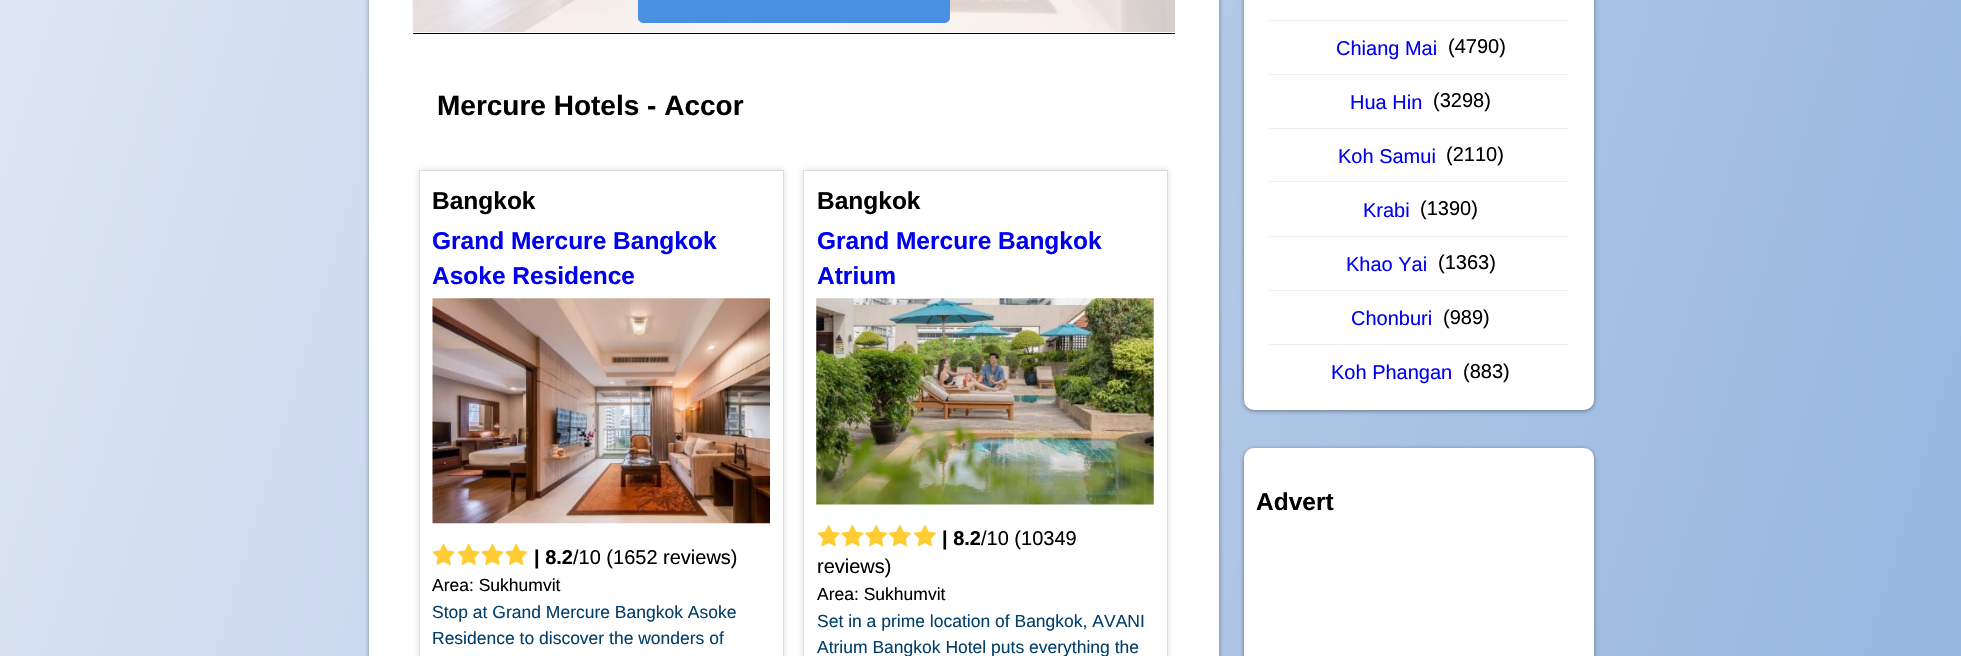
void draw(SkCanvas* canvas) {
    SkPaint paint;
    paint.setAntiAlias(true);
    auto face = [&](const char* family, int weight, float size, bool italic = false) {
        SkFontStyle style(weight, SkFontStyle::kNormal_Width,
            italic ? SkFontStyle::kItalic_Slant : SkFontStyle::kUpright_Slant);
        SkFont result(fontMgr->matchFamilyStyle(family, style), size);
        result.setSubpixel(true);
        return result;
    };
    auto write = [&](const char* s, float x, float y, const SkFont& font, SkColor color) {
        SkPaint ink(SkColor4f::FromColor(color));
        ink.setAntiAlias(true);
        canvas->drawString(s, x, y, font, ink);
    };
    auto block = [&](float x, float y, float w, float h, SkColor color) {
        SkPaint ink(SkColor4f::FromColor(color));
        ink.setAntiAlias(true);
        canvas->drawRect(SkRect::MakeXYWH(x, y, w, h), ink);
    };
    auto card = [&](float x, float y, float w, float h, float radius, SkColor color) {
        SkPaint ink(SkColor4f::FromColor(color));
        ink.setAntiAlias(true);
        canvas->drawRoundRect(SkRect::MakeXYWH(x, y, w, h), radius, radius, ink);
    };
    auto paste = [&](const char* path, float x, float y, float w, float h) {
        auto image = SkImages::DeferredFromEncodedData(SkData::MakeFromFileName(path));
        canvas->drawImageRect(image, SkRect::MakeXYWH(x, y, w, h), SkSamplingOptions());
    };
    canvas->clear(SK_ColorWHITE);
    {
        const SkColor colors[] = {SkColorSetRGB(230, 236, 246), SkColorSetRGB(218, 228, 242), SkColorSetRGB(206, 219, 239), SkColorSetRGB(194, 211, 235), SkColorSetRGB(181, 203, 231), SkColorSetRGB(169, 195, 228), SkColorSetRGB(158, 188, 225), SkColorSetRGB(146, 180, 222), SkColorSetRGB(132, 171, 219), SkColorSetRGB(118, 163, 215), SkColorSetRGB(102, 154, 212), SkColorSetRGB(86, 146, 208)};
        const float stops[] = {0, 0.09f, 0.18f, 0.27f, 0.36f, 0.45f, 0.55f, 0.64f, 0.73f, 0.82f, 0.91f, 1};
        const SkPoint ends[] = {{-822, 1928}, {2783, 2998}};
        paint.setShader(SkGradientShader::MakeLinear(ends, colors, stops, 12, SkTileMode::kClamp));
        paint.setAlpha(255);
    }
    canvas->drawRect(SkRect::MakeXYWH(0, 0, 1961, 656), paint);
    paint.setShader(nullptr);
    paint.setColor(SkColorSetARGB(102, 0, 0, 0));
    paint.setMaskFilter(SkMaskFilter::MakeBlur(kNormal_SkBlurStyle, 2));
    canvas->drawRoundRect(SkRect::MakeXYWH(369, -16, 850, 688), 10, 10, paint);
    paint.setMaskFilter(nullptr);
    block(369, 0, 850, 656, SK_ColorWHITE);
    block(413, 33, 762, 1, SK_ColorBLACK);
    paste("pic1.png", 412, 0, 763, 32);
    paint.setColor(SkColorSetRGB(74, 144, 226));
    canvas->drawRoundRect(SkRect::MakeXYWH(638.5f, -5.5f, 311, 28), 4.5f, 4.5f, paint);
    paint.setStyle(SkPaint::kStroke_Style);
    paint.setStrokeWidth(1);
    canvas->drawRoundRect(SkRect::MakeXYWH(638.5f, -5.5f, 311, 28), 4.5f, 4.5f, paint);
    auto kFont1 = face("Liberation Sans", 700, 28);
    write("Mercure Hotels - Accor", 437, 115, kFont1, SK_ColorBLACK);
    paint.setStyle(SkPaint::kFill_Style);
    paint.setColor(SkColorSetRGB(221, 221, 221));
    paint.setMaskFilter(SkMaskFilter::MakeBlur(kNormal_SkBlurStyle, 3));
    canvas->drawRect(SkRect::MakeXYWH(419, 170, 365, 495), paint);
    paint.setMaskFilter(nullptr);
    paint.setColor(SK_ColorWHITE);
    canvas->drawRect(SkRect::MakeXYWH(419.5f, 170.5f, 364, 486), paint);
    paint.setStyle(SkPaint::kStroke_Style);
    paint.setColor(SkColorSetRGB(221, 221, 221));
    canvas->drawRect(SkRect::MakeXYWH(419.5f, 170.5f, 364, 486), paint);
    auto kFont2 = face("Liberation Sans", 700, 24.5f);
    write("Bangkok", 432, 209, kFont2, SK_ColorBLACK);
    write("Grand Mercure Bangkok", 432, 249, kFont2, SkColorSetRGB(0, 0, 238));
    write("Asoke Residence", 432, 284, kFont2, SkColorSetRGB(0, 0, 238));
    paste("pic2.png", 432, 298, 338, 226);
    paste("pic3.png", 432, 543, 23, 22);
    paste("pic3.png", 457, 543, 23, 22);
    paste("pic4.png", 481, 543, 23, 22);
    paste("pic5.png", 505, 543, 23, 22);
    auto kFont3 = face("Liberation Sans", 700, 20);
    write("| 8.2", 534, 564, kFont3, SK_ColorBLACK);
    auto kFont4 = face("Liberation Sans", 400, 20);
    write("/10 (1652 reviews)", 573, 564, kFont4, SK_ColorBLACK);
    auto kFont5 = face("Liberation Sans", 400, 17.5f);
    write("Area: Sukhumvit", 432, 591, kFont5, SK_ColorBLACK);
    write("Stop at Grand Mercure Bangkok Asoke", 432, 618, kFont5, SkColorSetRGB(3, 63, 106));
    write("Residence to discover the wonders of", 432, 644, kFont5, SkColorSetRGB(3, 63, 106));
    paint.setStyle(SkPaint::kFill_Style);
    paint.setMaskFilter(SkMaskFilter::MakeBlur(kNormal_SkBlurStyle, 3));
    canvas->drawRect(SkRect::MakeXYWH(803, 170, 365, 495), paint);
    paint.setMaskFilter(nullptr);
    paint.setColor(SK_ColorWHITE);
    canvas->drawRect(SkRect::MakeXYWH(803.5f, 170.5f, 364, 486), paint);
    paint.setStyle(SkPaint::kStroke_Style);
    paint.setColor(SkColorSetRGB(221, 221, 221));
    canvas->drawRect(SkRect::MakeXYWH(803.5f, 170.5f, 364, 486), paint);
    write("Bangkok", 817, 209, kFont2, SK_ColorBLACK);
    write("Grand Mercure Bangkok", 817, 249, kFont2, SkColorSetRGB(0, 0, 238));
    write("Atrium", 817, 284, kFont2, SkColorSetRGB(0, 0, 238));
    paste("pic6.png", 816, 298, 338, 207);
    paste("pic7.png", 817, 525, 23, 22);
    paste("pic8.png", 841, 525, 23, 22);
    paste("pic9.png", 865, 525, 23, 22);
    paste("pic10.png", 888, 525, 23, 22);
    paste("pic10.png", 913, 525, 23, 22);
    write("| 8.2", 942, 545, kFont3, SK_ColorBLACK);
    write("/10 (10349", 981, 545, kFont4, SK_ColorBLACK);
    write("reviews)", 817, 573, kFont4, SK_ColorBLACK);
    write("Area: Sukhumvit", 817, 600, kFont5, SK_ColorBLACK);
    write("Set in a prime location of Bangkok, AVANI", 817, 627, kFont5, SkColorSetRGB(3, 63, 106));
    write("Atrium Bangkok Hotel puts everything the", 817, 653, kFont5, SkColorSetRGB(3, 63, 106));
    paint.setStyle(SkPaint::kFill_Style);
    paint.setColor(SkColorSetARGB(102, 0, 0, 0));
    paint.setMaskFilter(SkMaskFilter::MakeBlur(kNormal_SkBlurStyle, 2));
    canvas->drawRoundRect(SkRect::MakeXYWH(1244, -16, 350, 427), 10, 10, paint);
    paint.setMaskFilter(nullptr);
    card(1244, -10, 350, 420, 10, SK_ColorWHITE);
    block(1269, 20, 300, 1, SkColorSetRGB(238, 238, 238));
    write("Chiang Mai", 1336, 55, kFont4, SkColorSetRGB(0, 0, 238));
    write("(4790)", 1448, 53, kFont4, SK_ColorBLACK);
    block(1269, 74, 300, 1, SkColorSetRGB(238, 238, 238));
    write("Hua Hin", 1350, 109, kFont4, SkColorSetRGB(0, 0, 238));
    write("(3298)", 1433, 107, kFont4, SK_ColorBLACK);
    block(1269, 128, 300, 1, SkColorSetRGB(238, 238, 238));
    write("Koh Samui", 1338, 163, kFont4, SkColorSetRGB(0, 0, 238));
    write("(2110)", 1446, 161, kFont4, SK_ColorBLACK);
    block(1269, 181, 300, 1, SkColorSetRGB(238, 238, 238));
    write("Krabi", 1363, 217, kFont4, SkColorSetRGB(0, 0, 238));
    write("(1390)", 1420, 215, kFont4, SK_ColorBLACK);
    block(1269, 236, 300, 1, SkColorSetRGB(238, 238, 238));
    write("Khao Yai", 1346, 271, kFont4, SkColorSetRGB(0, 0, 238));
    write("(1363)", 1438, 269, kFont4, SK_ColorBLACK);
    block(1269, 290, 300, 1, SkColorSetRGB(238, 238, 238));
    write("Chonburi", 1351, 325, kFont4, SkColorSetRGB(0, 0, 238));
    write("(989)", 1443, 324, kFont4, SK_ColorBLACK);
    block(1269, 344, 300, 1, SkColorSetRGB(238, 238, 238));
    write("Koh Phangan", 1331, 379, kFont4, SkColorSetRGB(0, 0, 238));
    write("(883)", 1463, 378, kFont4, SK_ColorBLACK);
    paint.setMaskFilter(SkMaskFilter::MakeBlur(kNormal_SkBlurStyle, 2));
    canvas->drawRoundRect(SkRect::MakeXYWH(1244, 449, 350, 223), 10, 10, paint);
    paint.setMaskFilter(nullptr);
    card(1244, 448, 350, 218, 10, SK_ColorWHITE);
    write("Advert", 1256, 510, kFont2, SK_ColorBLACK);
}
